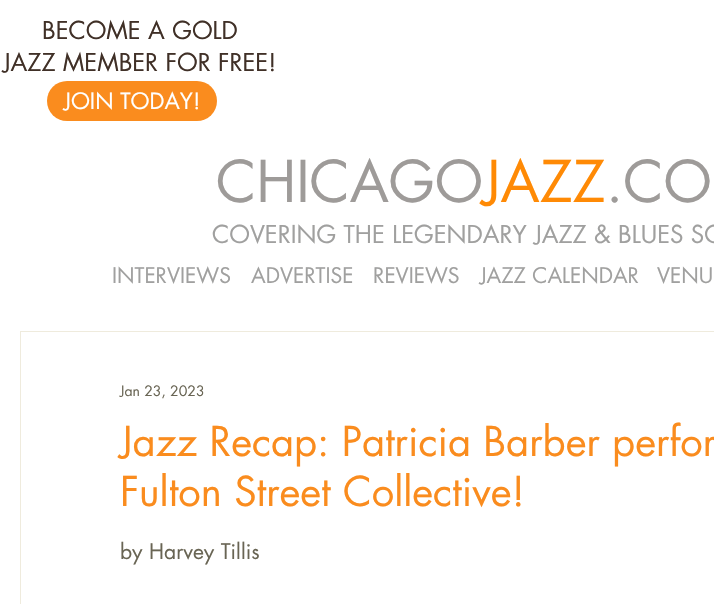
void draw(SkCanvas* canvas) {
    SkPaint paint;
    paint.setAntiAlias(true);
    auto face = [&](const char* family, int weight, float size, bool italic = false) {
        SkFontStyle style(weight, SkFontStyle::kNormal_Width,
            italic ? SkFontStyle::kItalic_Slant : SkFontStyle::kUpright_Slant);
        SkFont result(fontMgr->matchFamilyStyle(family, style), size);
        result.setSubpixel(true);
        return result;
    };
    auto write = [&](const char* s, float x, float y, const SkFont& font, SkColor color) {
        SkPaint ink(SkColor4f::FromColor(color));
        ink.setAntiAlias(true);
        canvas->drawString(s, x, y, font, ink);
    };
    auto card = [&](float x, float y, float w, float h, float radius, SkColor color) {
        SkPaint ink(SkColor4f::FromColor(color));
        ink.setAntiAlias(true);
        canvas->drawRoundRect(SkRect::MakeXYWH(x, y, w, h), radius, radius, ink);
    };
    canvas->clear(SK_ColorWHITE);
    auto kFont1 = face("futura", 400, 24);
    write("BECOME A GOLD", 42, 39, kFont1, SkColorSetRGB(64, 48, 39));
    write("JAZZ MEMBER FOR FREE!", 3, 71, kFont1, SkColorSetRGB(64, 48, 39));
    card(47, 81, 170, 40, 20, SkColorSetRGB(250, 140, 30));
    auto kFont2 = face("futura", 400, 22);
    write("JOIN TODAY!", 64, 109, kFont2, SK_ColorWHITE);
    auto kFont3 = face("futura", 400, 56);
    write("CHICAGO", 216, 202, kFont3, SkColorSetRGB(158, 155, 153));
    write("JAZZ", 483, 202, kFont3, SkColorSetRGB(255, 138, 5));
    write(".CO", 606, 202, kFont3, SkColorSetRGB(158, 155, 153));
    write("COVERING THE LEGENDARY JAZZ & BLUES SC", 212, 243, kFont1, SkColorSetRGB(160, 160, 159));
    auto kFont4 = face("futura", 400, 21);
    write("INTERVIEWS", 112, 283, kFont4, SkColorSetRGB(160, 160, 159));
    write("ADVERTISE", 251, 283, kFont4, SkColorSetRGB(160, 160, 159));
    write("REVIEWS", 373, 283, kFont4, SkColorSetRGB(160, 160, 159));
    write("JAZZ CALENDAR", 480, 283, kFont4, SkColorSetRGB(160, 160, 159));
    write("VENU", 657, 283, kFont4, SkColorSetRGB(160, 160, 159));
    paint.setStyle(SkPaint::kStroke_Style);
    paint.setStrokeWidth(1);
    paint.setColor(SkColorSetRGB(239, 235, 221));
    canvas->drawRect(SkRect::MakeXYWH(20.5f, 331.5f, 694, 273), paint);
    auto kFont5 = face("futura", 400, 14);
    write("Jan 23, 2023", 120, 396, kFont5, SkColorSetRGB(105, 101, 84));
    auto kFont6 = face("futura", 400, 40);
    write("Jazz Recap: Patricia Barber perfor", 120, 456, kFont6, SkColorSetRGB(250, 140, 30));
    write("Fulton Street Collective!", 120, 506, kFont6, SkColorSetRGB(250, 140, 30));
    write("by Harvey Tillis", 120, 559, kFont4, SkColorSetRGB(105, 101, 84));
}
